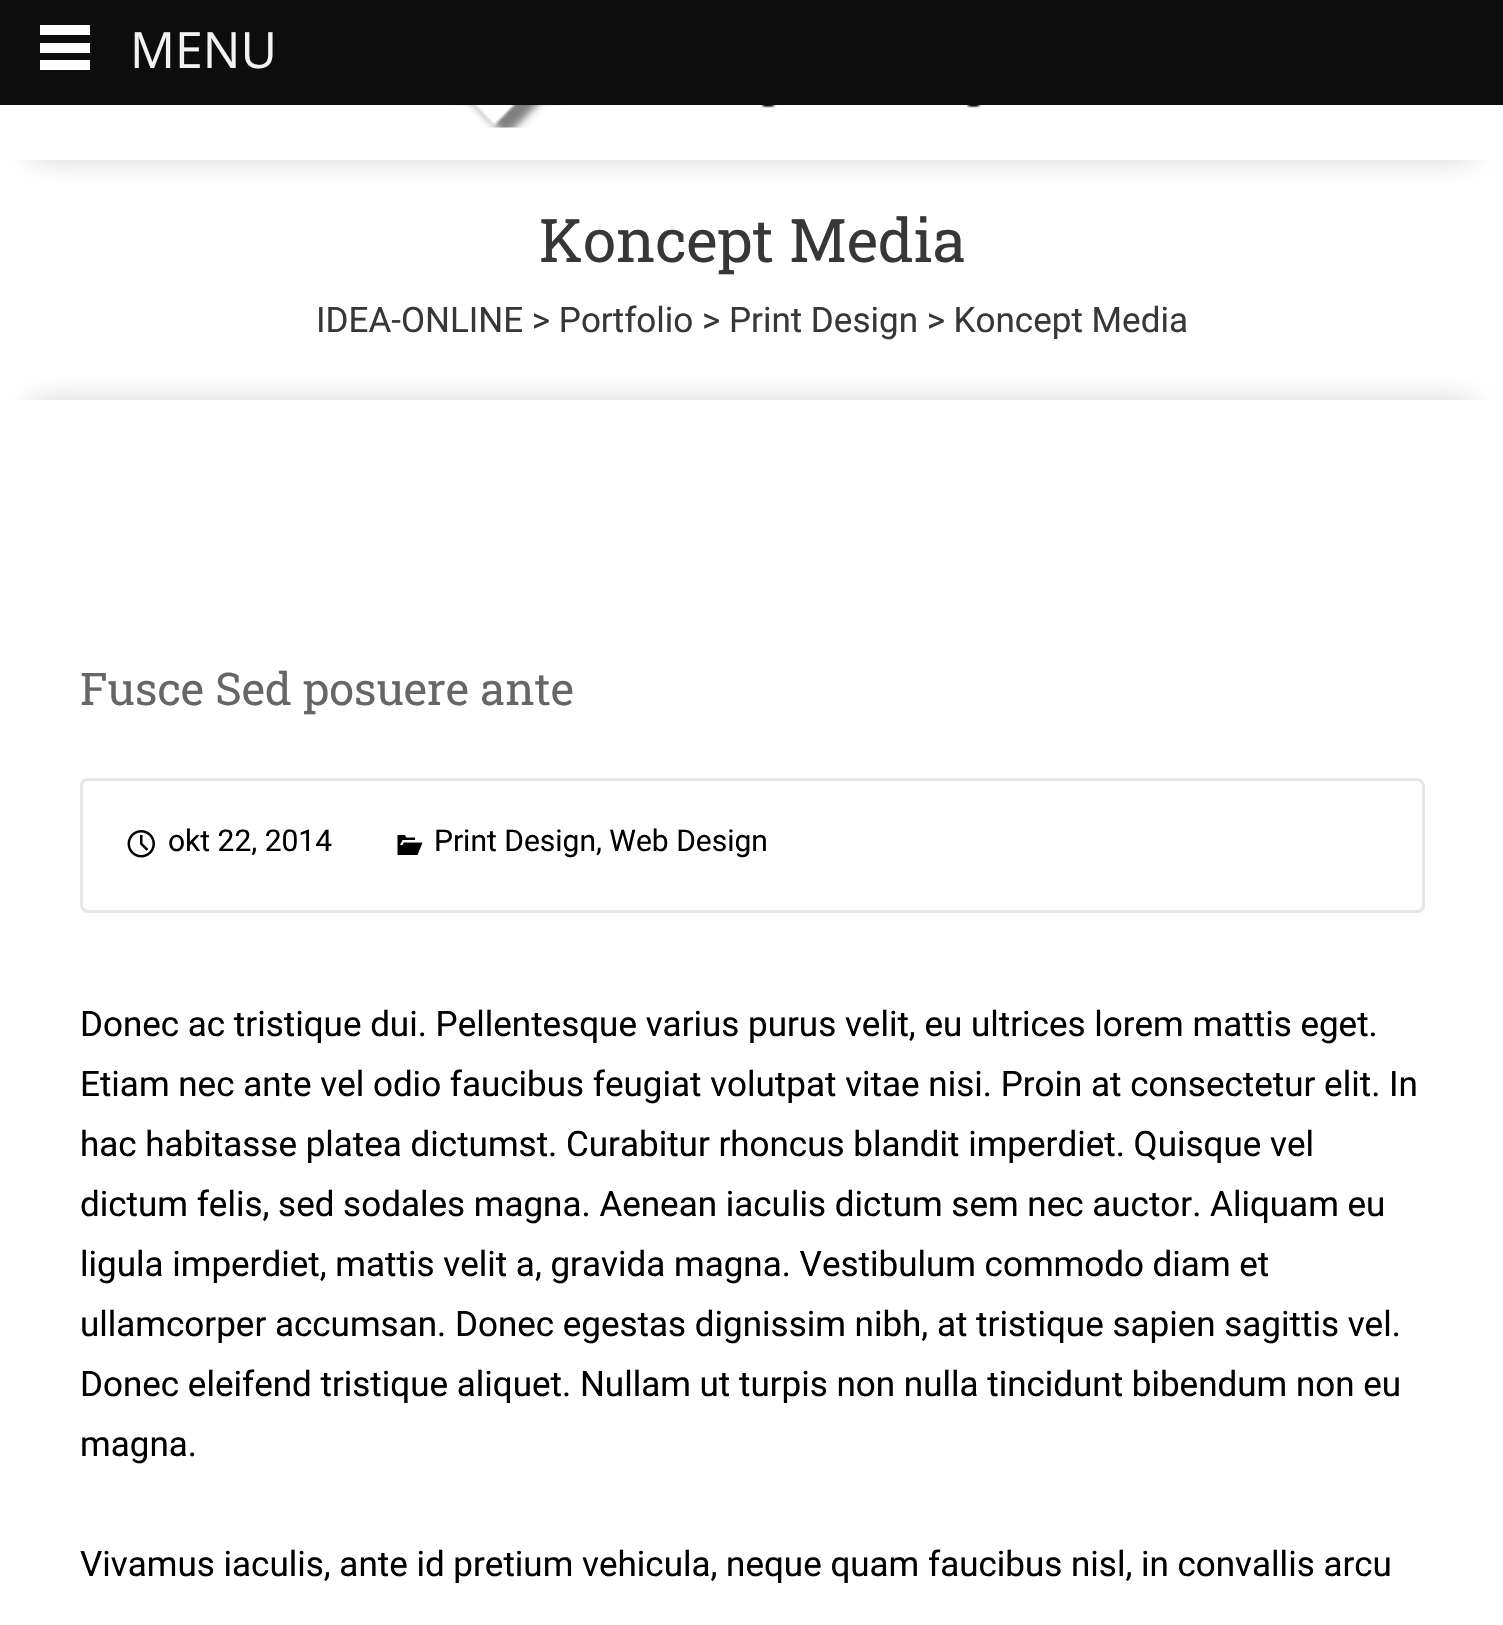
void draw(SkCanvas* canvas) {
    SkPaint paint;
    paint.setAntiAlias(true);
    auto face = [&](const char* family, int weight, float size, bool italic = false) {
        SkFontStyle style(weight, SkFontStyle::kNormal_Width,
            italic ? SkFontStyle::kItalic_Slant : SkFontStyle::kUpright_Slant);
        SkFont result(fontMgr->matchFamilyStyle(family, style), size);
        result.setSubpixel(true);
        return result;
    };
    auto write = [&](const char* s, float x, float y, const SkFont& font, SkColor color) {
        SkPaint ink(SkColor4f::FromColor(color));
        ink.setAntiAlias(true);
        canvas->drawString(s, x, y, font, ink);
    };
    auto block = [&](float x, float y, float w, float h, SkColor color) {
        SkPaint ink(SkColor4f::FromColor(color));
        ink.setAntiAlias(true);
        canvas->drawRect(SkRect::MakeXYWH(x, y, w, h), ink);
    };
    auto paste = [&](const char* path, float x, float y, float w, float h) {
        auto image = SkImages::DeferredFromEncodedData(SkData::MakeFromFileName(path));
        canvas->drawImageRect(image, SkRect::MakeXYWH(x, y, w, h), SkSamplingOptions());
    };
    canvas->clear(SK_ColorWHITE);
    canvas->save();
    canvas->clipRect(SkRect::MakeXYWH(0, 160, 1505, 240));
    paint.setColor(SkColorSetARGB(61, 0, 0, 0));
    paint.setMaskFilter(SkMaskFilter::MakeBlur(kNormal_SkBlurStyle, 15));
    canvas->drawRoundRect(SkRect::MakeXYWH(30, 130, 1445, 25), 12.5f, 12.5f, paint);
    paint.setMaskFilter(nullptr);
    canvas->restore();
    block(0, 0, 1503, 105, SkColorSetRGB(13, 13, 13));
    block(40, 25, 50, 10, SK_ColorWHITE);
    block(40, 43, 50, 10, SK_ColorWHITE);
    block(40, 60, 50, 10, SK_ColorWHITE);
    auto kFont1 = face("Open Sans", 400, 50);
    write("MENU", 130, 68, kFont1, SkColorSetRGB(242, 242, 242));
    paste("pic1.png", 454, 105, 568, 23);
    auto kFont2 = face("Roboto Slab", 400, 60);
    write("Koncept Media", 539, 262, kFont2, SkColorSetRGB(55, 55, 55));
    auto kFont3 = face("Roboto", 400, 35);
    write("IDEA-ONLINE > Portfolio > Print Design > Koncept Media", 316, 332, kFont3, SkColorSetRGB(55, 55, 55));
    canvas->save();
    canvas->clipRect(SkRect::MakeXYWH(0, 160, 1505, 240));
    paint.setMaskFilter(SkMaskFilter::MakeBlur(kNormal_SkBlurStyle, 15));
    canvas->drawRoundRect(SkRect::MakeXYWH(30, 405, 1445, 25), 12.5f, 12.5f, paint);
    paint.setMaskFilter(nullptr);
    canvas->restore();
    auto kFont4 = face("Roboto Slab", 400, 45);
    write("Fusce Sed posuere ante", 80, 705, kFont4, SkColorSetRGB(102, 102, 102));
    paint.setStyle(SkPaint::kStroke_Style);
    paint.setStrokeWidth(3);
    paint.setColor(SkColorSetRGB(231, 231, 231));
    canvas->drawRoundRect(SkRect::MakeXYWH(81.5f, 779.5f, 1342, 132), 6.5f, 6.5f, paint);
    paste("pic2.png", 127, 830, 28, 28);
    auto kFont5 = face("Roboto", 400, 30);
    write("okt 22, 2014", 168, 851, kFont5, SK_ColorBLACK);
    paste("pic3.png", 397, 835, 26, 20);
    write("Print Design, Web Design", 434, 851, kFont5, SK_ColorBLACK);
    write("Donec ac tristique dui. Pellentesque varius purus velit, eu ultrices lorem mattis eget.", 80, 1036, kFont3, SK_ColorBLACK);
    write("Etiam nec ante vel odio faucibus feugiat volutpat vitae nisi. Proin at consectetur elit. In", 80, 1096, kFont3, SK_ColorBLACK);
    write("hac habitasse platea dictumst. Curabitur rhoncus blandit imperdiet. Quisque vel", 80, 1156, kFont3, SK_ColorBLACK);
    write("dictum felis, sed sodales magna. Aenean iaculis dictum sem nec auctor. Aliquam eu", 80, 1216, kFont3, SK_ColorBLACK);
    write("ligula imperdiet, mattis velit a, gravida magna. Vestibulum commodo diam et", 80, 1276, kFont3, SK_ColorBLACK);
    write("ullamcorper accumsan. Donec egestas dignissim nibh, at tristique sapien sagittis vel.", 80, 1336, kFont3, SK_ColorBLACK);
    write("Donec eleifend tristique aliquet. Nullam ut turpis non nulla tincidunt bibendum non eu", 80, 1396, kFont3, SK_ColorBLACK);
    write("magna.", 80, 1456, kFont3, SK_ColorBLACK);
    write("Vivamus iaculis, ante id pretium vehicula, neque quam faucibus nisl, in convallis arcu", 80, 1576, kFont3, SK_ColorBLACK);
}
